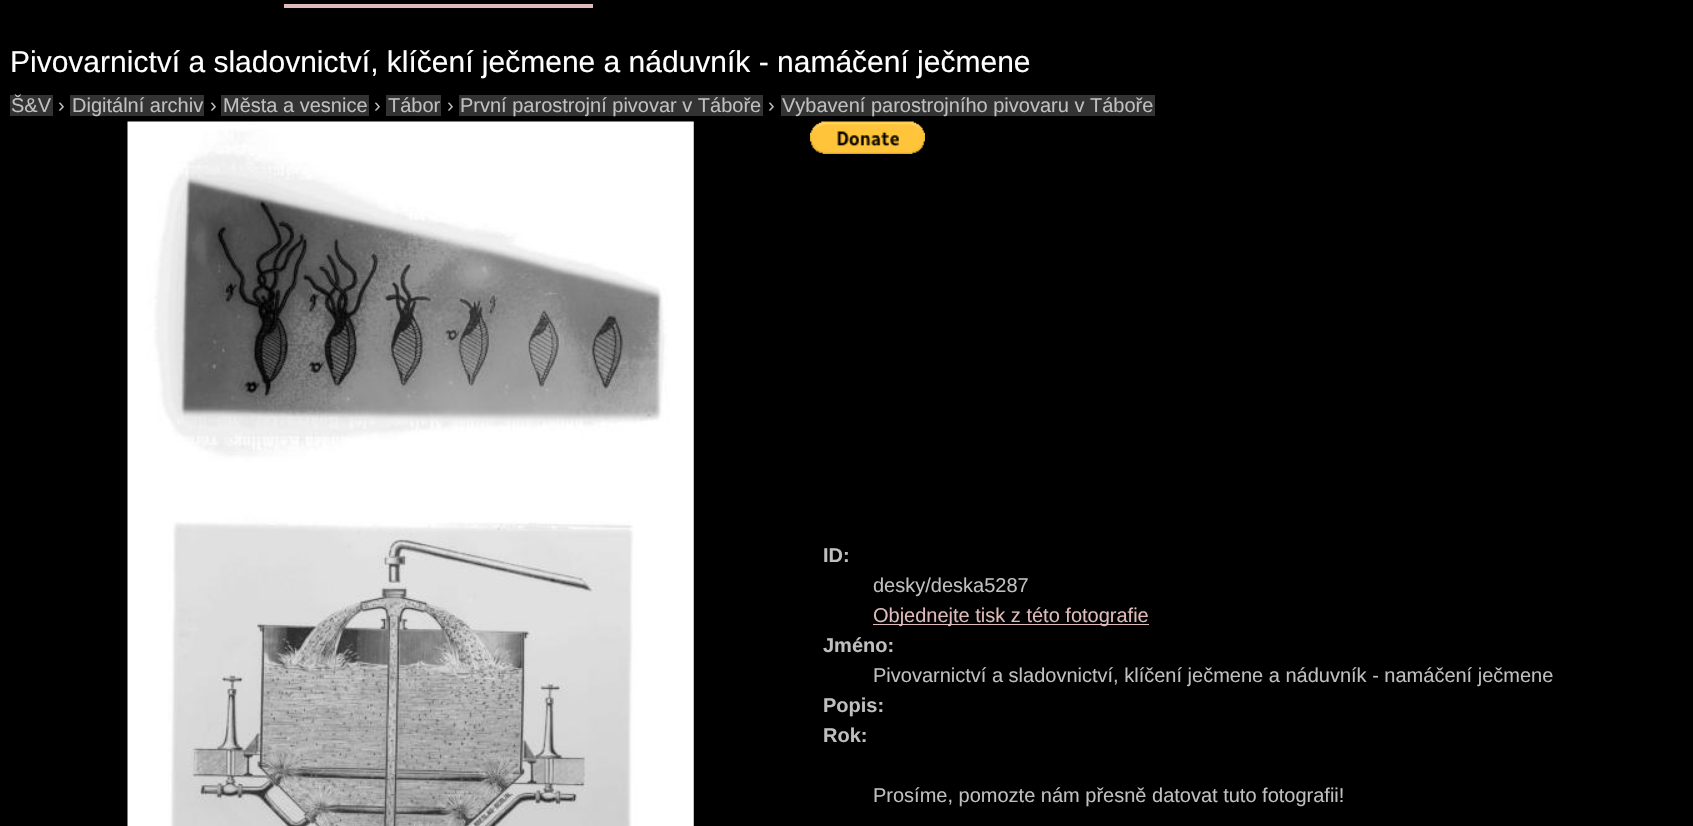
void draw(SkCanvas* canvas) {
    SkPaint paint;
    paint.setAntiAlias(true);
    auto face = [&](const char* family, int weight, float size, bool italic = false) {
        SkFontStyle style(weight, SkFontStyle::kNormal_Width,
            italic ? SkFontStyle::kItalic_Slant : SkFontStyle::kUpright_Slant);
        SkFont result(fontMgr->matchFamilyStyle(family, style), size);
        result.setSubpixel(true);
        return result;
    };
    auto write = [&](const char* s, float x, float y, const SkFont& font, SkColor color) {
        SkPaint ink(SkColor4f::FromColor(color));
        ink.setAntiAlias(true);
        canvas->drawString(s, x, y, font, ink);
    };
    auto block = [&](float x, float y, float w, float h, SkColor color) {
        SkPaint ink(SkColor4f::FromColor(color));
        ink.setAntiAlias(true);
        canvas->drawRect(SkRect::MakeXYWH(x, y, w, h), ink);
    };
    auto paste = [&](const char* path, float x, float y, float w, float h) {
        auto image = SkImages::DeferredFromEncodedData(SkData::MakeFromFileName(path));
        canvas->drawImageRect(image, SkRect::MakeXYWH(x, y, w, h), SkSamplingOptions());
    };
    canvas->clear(SK_ColorBLACK);
    block(284, 4, 309, 4, SkColorSetRGB(223, 187, 187));
    auto kFont1 = face("Liberation Sans", 400, 30);
    write("Pivovarnictví a sladovnictví, klíčení ječmene a náduvník - namáčení ječmene", 10, 72, kFont1, SK_ColorWHITE);
    block(10, 95, 43, 21, SkColorSetRGB(51, 51, 51));
    auto kFont2 = face("Liberation Sans", 400, 20);
    write("Š&V", 11, 112, kFont2, SkColorSetRGB(191, 191, 191));
    write("›", 58, 112, kFont2, SkColorSetRGB(191, 191, 191));
    block(70, 95, 134, 21, SkColorSetRGB(51, 51, 51));
    write("Digitální archiv", 72, 112, kFont2, SkColorSetRGB(191, 191, 191));
    write("›", 210, 112, kFont2, SkColorSetRGB(191, 191, 191));
    block(221, 95, 148, 21, SkColorSetRGB(51, 51, 51));
    write("Města a vesnice", 223, 112, kFont2, SkColorSetRGB(191, 191, 191));
    write("›", 374, 112, kFont2, SkColorSetRGB(191, 191, 191));
    block(386, 95, 55, 21, SkColorSetRGB(51, 51, 51));
    write("Tábor", 388, 112, kFont2, SkColorSetRGB(191, 191, 191));
    write("›", 447, 112, kFont2, SkColorSetRGB(191, 191, 191));
    block(459, 95, 304, 21, SkColorSetRGB(51, 51, 51));
    write("První parostrojní pivovar v Táboře", 460, 112, kFont2, SkColorSetRGB(191, 191, 191));
    write("›", 768, 112, kFont2, SkColorSetRGB(191, 191, 191));
    block(781, 95, 374, 21, SkColorSetRGB(51, 51, 51));
    write("Vybavení parostrojního pivovaru v Táboře", 782, 112, kFont2, SkColorSetRGB(191, 191, 191));
    paste("pic1.png", 127, 121, 567, 705);
    paste("pic2.png", 810, 121, 115, 33);
    auto kFont3 = face("Liberation Sans", 700, 20);
    write("ID:", 823, 562, kFont3, SkColorSetRGB(191, 191, 191));
    write("desky/deska5287", 873, 592, kFont2, SkColorSetRGB(191, 191, 191));
    block(873, 624, 276, 1, SkColorSetRGB(223, 187, 187));
    write("Objednejte tisk z této fotografie", 873, 622, kFont2, SkColorSetRGB(223, 187, 187));
    write("Jméno:", 823, 652, kFont3, SkColorSetRGB(191, 191, 191));
    write("Pivovarnictví a sladovnictví, klíčení ječmene a náduvník - namáčení ječmene", 873, 682, kFont2, SkColorSetRGB(191, 191, 191));
    write("Popis:", 823, 712, kFont3, SkColorSetRGB(191, 191, 191));
    write("Rok:", 823, 742, kFont3, SkColorSetRGB(191, 191, 191));
    write("Prosíme, pomozte nám přesně datovat tuto fotografii!", 873, 802, kFont2, SkColorSetRGB(191, 191, 191));
}
